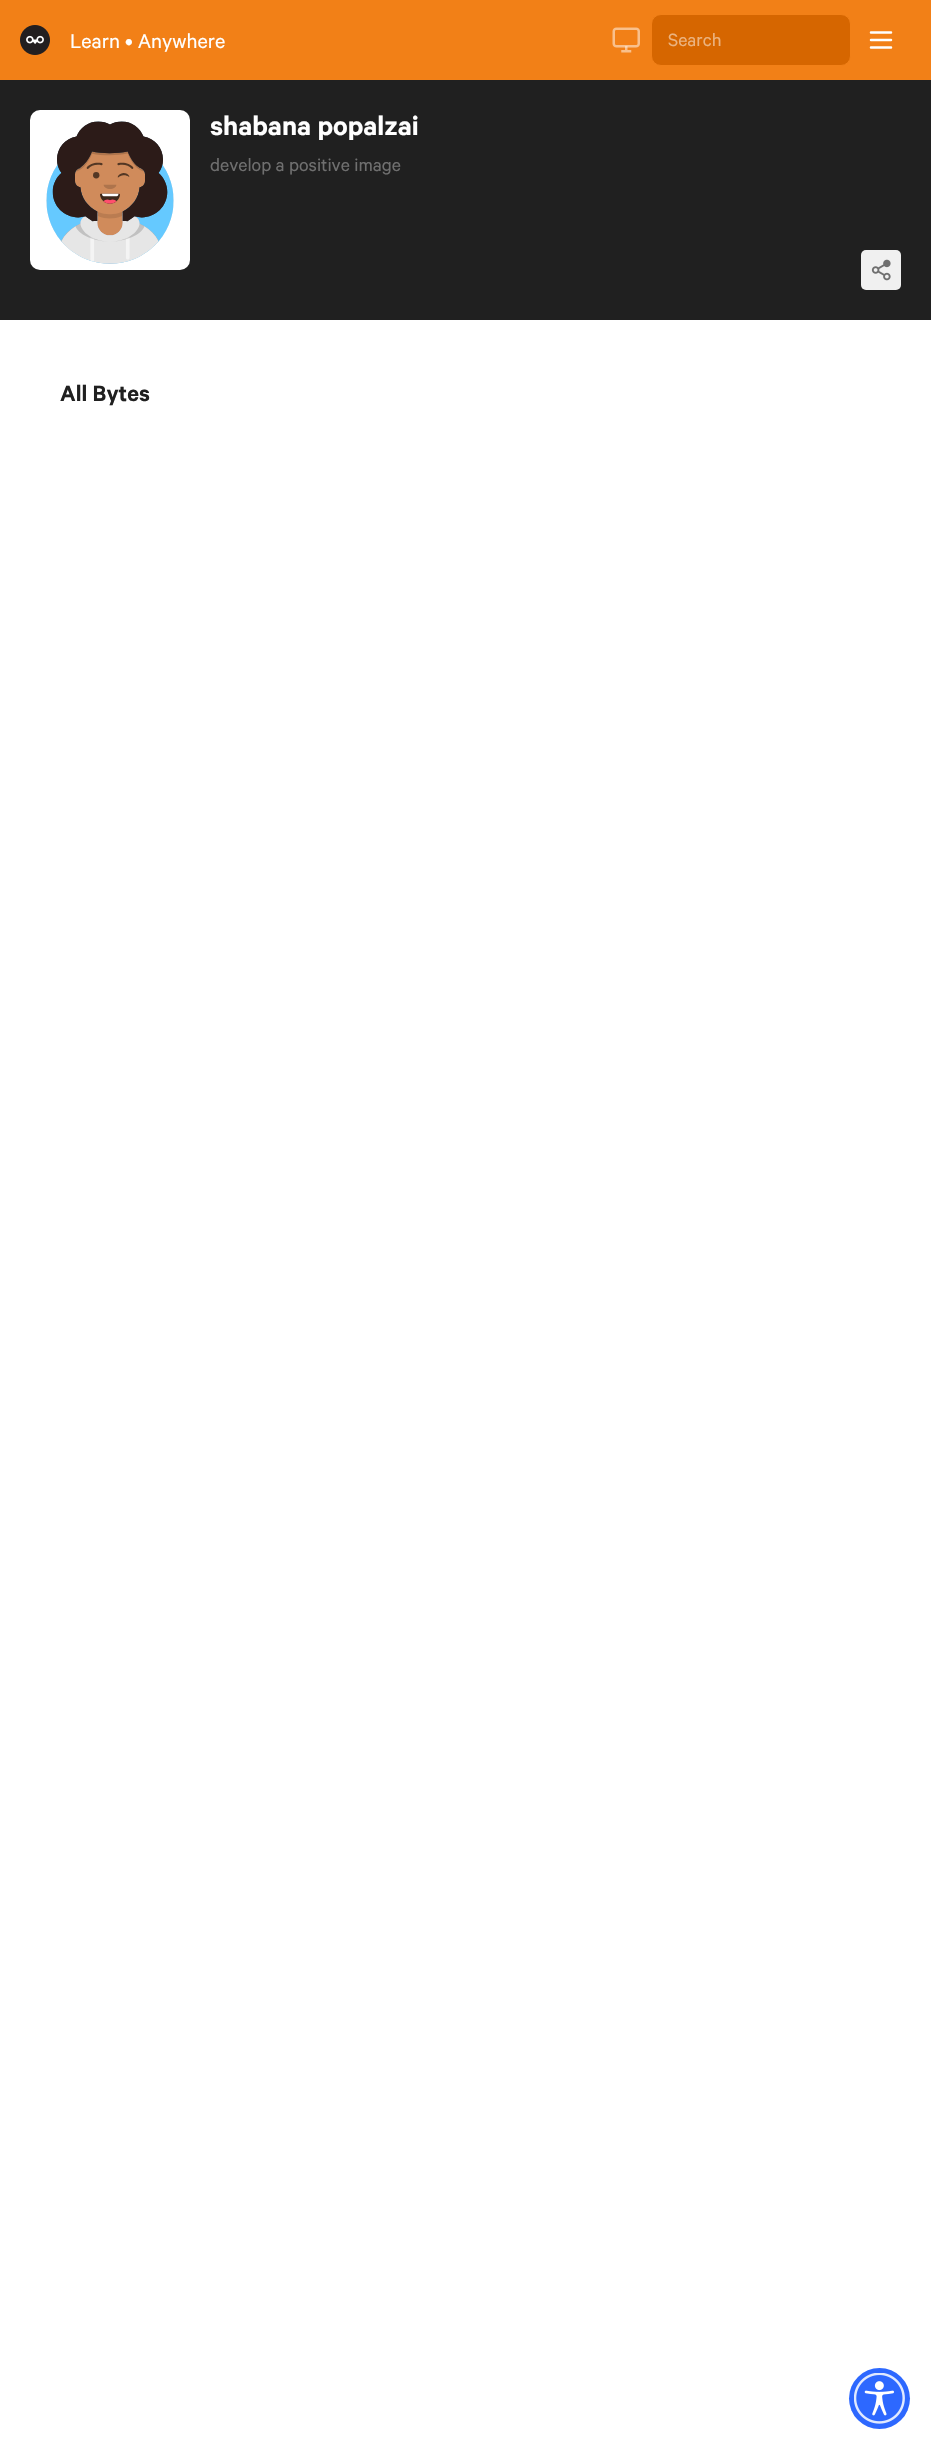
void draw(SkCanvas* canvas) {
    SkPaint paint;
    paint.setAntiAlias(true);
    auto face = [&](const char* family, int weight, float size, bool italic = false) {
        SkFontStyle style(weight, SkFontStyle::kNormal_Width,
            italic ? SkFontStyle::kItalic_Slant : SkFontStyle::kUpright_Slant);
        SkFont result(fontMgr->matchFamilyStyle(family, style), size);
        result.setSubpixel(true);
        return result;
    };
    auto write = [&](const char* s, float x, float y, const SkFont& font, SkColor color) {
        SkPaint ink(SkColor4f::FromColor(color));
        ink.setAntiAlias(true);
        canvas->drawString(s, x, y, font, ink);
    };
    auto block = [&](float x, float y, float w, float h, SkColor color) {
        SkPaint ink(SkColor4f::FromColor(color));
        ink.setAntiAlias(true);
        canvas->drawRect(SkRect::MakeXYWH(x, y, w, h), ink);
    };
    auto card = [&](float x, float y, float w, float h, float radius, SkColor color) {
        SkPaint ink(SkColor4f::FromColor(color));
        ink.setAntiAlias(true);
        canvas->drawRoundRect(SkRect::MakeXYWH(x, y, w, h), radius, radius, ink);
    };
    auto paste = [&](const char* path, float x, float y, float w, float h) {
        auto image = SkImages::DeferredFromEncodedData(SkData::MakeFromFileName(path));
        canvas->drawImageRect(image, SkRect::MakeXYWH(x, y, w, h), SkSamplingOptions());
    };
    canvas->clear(SK_ColorWHITE);
    block(0, 0, 931, 80, SkColorSetRGB(242, 128, 23));
    paste("pic1.png", 20, 25, 30, 30);
    auto kFont1 = face("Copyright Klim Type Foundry", 400, 22.5f);
    write("Learn • Anywhere", 70, 48, kFont1, SK_ColorWHITE);
    paste("pic2.png", 612, 27, 28, 26);
    paint.setColor(SkColorSetRGB(214, 102, 0));
    canvas->drawRoundRect(SkRect::MakeXYWH(651.5f, 14.5f, 199, 51), 9.5f, 9.5f, paint);
    paint.setStyle(SkPaint::kStroke_Style);
    paint.setStrokeWidth(1);
    paint.setColor(SkColorSetRGB(242, 128, 23));
    canvas->drawRoundRect(SkRect::MakeXYWH(651.5f, 14.5f, 199, 51), 9.5f, 9.5f, paint);
    auto kFont2 = face("Copyright Klim Type Foundry", 400, 20);
    write("Search", 668, 46, kFont2, SkColorSetRGB(235, 179, 128));
    paint.setStrokeWidth(2.5f);
    paint.setStrokeCap(SkPaint::kRound_Cap);
    paint.setStrokeJoin(SkPaint::kRound_Join);
    paint.setColor(SK_ColorWHITE);
    canvas->drawPath(SkPathBuilder().moveTo(871, 32.5f).lineTo(891, 32.5f).moveTo(871, 40).lineTo(891, 40).moveTo(871, 47.5f).lineTo(891, 47.5f).detach(), paint);
    block(0, 80, 931, 240, SkColorSetRGB(32, 32, 32));
    card(30, 110, 160, 160, 10, SK_ColorWHITE);
    paste("pic3.png", 46, 121, 128, 143);
    auto kFont3 = face("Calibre", 600, 30);
    write("shabana popalzai", 210, 135, kFont3, SK_ColorWHITE);
    write("develop a positive image", 210, 171, kFont2, SkColorSetRGB(111, 111, 111));
    card(861, 250, 40, 40, 5, SkColorSetRGB(240, 240, 240));
    paste("pic4.png", 871, 259, 20, 22);
    auto kFont4 = face("Calibre", 600, 25);
    write("All Bytes", 60, 401, kFont4, SkColorSetRGB(32, 32, 32));
    paint.setStyle(SkPaint::kFill_Style);
    paint.setColor(SkColorSetRGB(45, 104, 255));
    canvas->drawCircle(879.5f, 2398.5f, 30.5f, paint);
    paste("pic5.png", 854, 2373, 51, 51);
}
